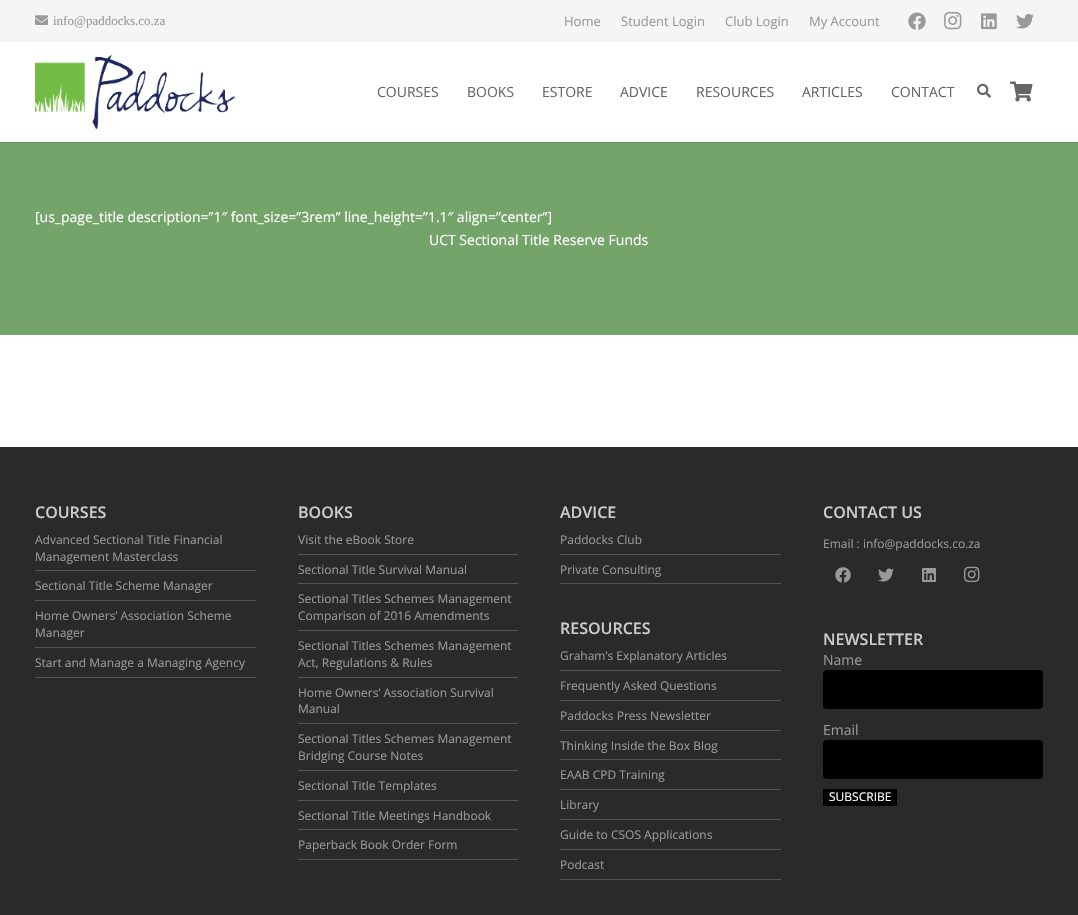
void draw(SkCanvas* canvas) {
    SkPaint paint;
    paint.setAntiAlias(true);
    auto face = [&](const char* family, int weight, float size, bool italic = false) {
        SkFontStyle style(weight, SkFontStyle::kNormal_Width,
            italic ? SkFontStyle::kItalic_Slant : SkFontStyle::kUpright_Slant);
        SkFont result(fontMgr->matchFamilyStyle(family, style), size);
        result.setSubpixel(true);
        return result;
    };
    auto write = [&](const char* s, float x, float y, const SkFont& font, SkColor color) {
        SkPaint ink(SkColor4f::FromColor(color));
        ink.setAntiAlias(true);
        canvas->drawString(s, x, y, font, ink);
    };
    auto block = [&](float x, float y, float w, float h, SkColor color) {
        SkPaint ink(SkColor4f::FromColor(color));
        ink.setAntiAlias(true);
        canvas->drawRect(SkRect::MakeXYWH(x, y, w, h), ink);
    };
    auto card = [&](float x, float y, float w, float h, float radius, SkColor color) {
        SkPaint ink(SkColor4f::FromColor(color));
        ink.setAntiAlias(true);
        canvas->drawRoundRect(SkRect::MakeXYWH(x, y, w, h), radius, radius, ink);
    };
    auto paste = [&](const char* path, float x, float y, float w, float h) {
        auto image = SkImages::DeferredFromEncodedData(SkData::MakeFromFileName(path));
        canvas->drawImageRect(image, SkRect::MakeXYWH(x, y, w, h), SkSamplingOptions());
    };
    canvas->clear(SK_ColorWHITE);
    block(0, 0, 1078, 42, SkColorSetRGB(245, 245, 245));
    paste("pic1.png", 35, 15, 13, 10);
    auto kFont1 = face("Liberation Serif", 400, 13);
    write("info@paddocks.co.za", 53, 25, kFont1, SkColorSetRGB(153, 153, 153));
    auto kFont2 = face("Open Sans", 400, 13);
    write("Home", 564, 26, kFont2, SkColorSetRGB(153, 153, 153));
    write("Student Login", 621, 26, kFont2, SkColorSetRGB(153, 153, 153));
    write("Club Login", 725, 26, kFont2, SkColorSetRGB(153, 153, 153));
    write("My Account", 809, 26, kFont2, SkColorSetRGB(153, 153, 153));
    paste("pic2.png", 908, 12, 18, 18);
    paste("pic3.png", 944, 11, 18, 19);
    paste("pic4.png", 981, 13, 16, 17);
    paste("pic5.png", 1016, 14, 18, 15);
    block(0, 142, 1078, 1, SkColorSetRGB(108, 151, 98));
    paste("pic6.png", 35, 54, 201, 76);
    auto kFont3 = face("Open Sans", 400, 14);
    write("COURSES", 377, 97, kFont3, SkColorSetRGB(102, 102, 102));
    write("BOOKS", 467, 97, kFont3, SkColorSetRGB(102, 102, 102));
    write("ESTORE", 542, 97, kFont3, SkColorSetRGB(102, 102, 102));
    write("ADVICE", 620, 97, kFont3, SkColorSetRGB(102, 102, 102));
    write("RESOURCES", 696, 97, kFont3, SkColorSetRGB(102, 102, 102));
    write("ARTICLES", 802, 97, kFont3, SkColorSetRGB(102, 102, 102));
    write("CONTACT", 891, 97, kFont3, SkColorSetRGB(102, 102, 102));
    paste("pic7.png", 977, 83, 14, 15);
    paste("pic8.png", 1010, 81, 23, 21);
    block(0, 143, 1078, 192, SkColorSetRGB(117, 164, 107));
    write("[us_page_title description=”1″ font_size=”3rem” line_height=”1.1″ align=”center”]", 35, 222, kFont3, SK_ColorWHITE);
    write("UCT Sectional Title Reserve Funds", 429, 245, kFont3, SK_ColorWHITE);
    block(0, 447, 1078, 468, SkColorSetRGB(42, 42, 42));
    auto kFont4 = face("Open Sans", 600, 16);
    write("COURSES", 35, 518, kFont4, SkColorSetRGB(204, 204, 204));
    block(35, 570, 221, 1, SkColorSetRGB(85, 85, 85));
    auto kFont5 = face("Open Sans", 400, 12);
    write("Advanced Sectional Title Financial", 35, 544, kFont5, SkColorSetRGB(153, 153, 153));
    write("Management Masterclass", 35, 561, kFont5, SkColorSetRGB(153, 153, 153));
    block(35, 600, 221, 1, SkColorSetRGB(85, 85, 85));
    write("Sectional Title Scheme Manager", 35, 590, kFont5, SkColorSetRGB(153, 153, 153));
    block(35, 647, 221, 1, SkColorSetRGB(85, 85, 85));
    write("Home Owners’ Association Scheme", 35, 620, kFont5, SkColorSetRGB(153, 153, 153));
    write("Manager", 35, 637, kFont5, SkColorSetRGB(153, 153, 153));
    block(35, 677, 221, 1, SkColorSetRGB(85, 85, 85));
    write("Start and Manage a Managing Agency", 35, 667, kFont5, SkColorSetRGB(153, 153, 153));
    write("BOOKS", 298, 518, kFont4, SkColorSetRGB(204, 204, 204));
    block(298, 554, 220, 1, SkColorSetRGB(85, 85, 85));
    write("Visit the eBook Store", 298, 544, kFont5, SkColorSetRGB(153, 153, 153));
    block(298, 583, 220, 1, SkColorSetRGB(85, 85, 85));
    write("Sectional Title Survival Manual", 298, 574, kFont5, SkColorSetRGB(153, 153, 153));
    block(298, 630, 220, 1, SkColorSetRGB(85, 85, 85));
    write("Sectional Titles Schemes Management", 298, 603, kFont5, SkColorSetRGB(153, 153, 153));
    write("Comparison of 2016 Amendments", 298, 620, kFont5, SkColorSetRGB(153, 153, 153));
    block(298, 677, 220, 1, SkColorSetRGB(85, 85, 85));
    write("Sectional Titles Schemes Management", 298, 650, kFont5, SkColorSetRGB(153, 153, 153));
    write("Act, Regulations & Rules", 298, 667, kFont5, SkColorSetRGB(153, 153, 153));
    block(298, 723, 220, 1, SkColorSetRGB(85, 85, 85));
    write("Home Owners’ Association Survival", 298, 697, kFont5, SkColorSetRGB(153, 153, 153));
    write("Manual", 298, 713, kFont5, SkColorSetRGB(153, 153, 153));
    block(298, 770, 220, 1, SkColorSetRGB(85, 85, 85));
    write("Sectional Titles Schemes Management", 298, 743, kFont5, SkColorSetRGB(153, 153, 153));
    write("Bridging Course Notes", 298, 760, kFont5, SkColorSetRGB(153, 153, 153));
    block(298, 800, 220, 1, SkColorSetRGB(85, 85, 85));
    write("Sectional Title Templates", 298, 790, kFont5, SkColorSetRGB(153, 153, 153));
    block(298, 829, 220, 1, SkColorSetRGB(85, 85, 85));
    write("Sectional Title Meetings Handbook", 298, 820, kFont5, SkColorSetRGB(153, 153, 153));
    block(298, 859, 220, 1, SkColorSetRGB(85, 85, 85));
    write("Paperback Book Order Form", 298, 849, kFont5, SkColorSetRGB(153, 153, 153));
    write("ADVICE", 560, 518, kFont4, SkColorSetRGB(204, 204, 204));
    block(560, 554, 221, 1, SkColorSetRGB(85, 85, 85));
    write("Paddocks Club", 560, 544, kFont5, SkColorSetRGB(153, 153, 153));
    block(560, 583, 221, 1, SkColorSetRGB(85, 85, 85));
    write("Private Consulting", 560, 574, kFont5, SkColorSetRGB(153, 153, 153));
    write("RESOURCES", 560, 634, kFont4, SkColorSetRGB(204, 204, 204));
    block(560, 670, 221, 1, SkColorSetRGB(85, 85, 85));
    write("Graham’s Explanatory Articles", 560, 660, kFont5, SkColorSetRGB(153, 153, 153));
    block(560, 700, 221, 1, SkColorSetRGB(85, 85, 85));
    write("Frequently Asked Questions", 560, 690, kFont5, SkColorSetRGB(153, 153, 153));
    block(560, 730, 221, 1, SkColorSetRGB(85, 85, 85));
    write("Paddocks Press Newsletter", 560, 720, kFont5, SkColorSetRGB(153, 153, 153));
    block(560, 759, 221, 1, SkColorSetRGB(85, 85, 85));
    write("Thinking Inside the Box Blog", 560, 750, kFont5, SkColorSetRGB(153, 153, 153));
    block(560, 789, 221, 1, SkColorSetRGB(85, 85, 85));
    write("EAAB CPD Training", 560, 779, kFont5, SkColorSetRGB(153, 153, 153));
    block(560, 819, 221, 1, SkColorSetRGB(85, 85, 85));
    write("Library", 560, 809, kFont5, SkColorSetRGB(153, 153, 153));
    block(560, 849, 221, 1, SkColorSetRGB(85, 85, 85));
    write("Guide to CSOS Applications", 560, 839, kFont5, SkColorSetRGB(153, 153, 153));
    block(560, 879, 221, 1, SkColorSetRGB(85, 85, 85));
    write("Podcast", 560, 869, kFont5, SkColorSetRGB(153, 153, 153));
    write("CONTACT US", 823, 518, kFont4, SkColorSetRGB(204, 204, 204));
    write("Email : info@paddocks.co.za", 823, 548, kFont5, SkColorSetRGB(153, 153, 153));
    paste("pic9.png", 835, 567, 16, 16);
    paste("pic10.png", 878, 568, 16, 14);
    paste("pic11.png", 922, 568, 14, 14);
    paste("pic12.png", 964, 566, 16, 17);
    write("NEWSLETTER", 823, 645, kFont4, SkColorSetRGB(204, 204, 204));
    write("Name", 823, 665, kFont3, SkColorSetRGB(153, 153, 153));
    card(823, 670, 220, 39, 4, SK_ColorBLACK);
    write("Email", 823, 735, kFont3, SkColorSetRGB(153, 153, 153));
    card(823, 740, 220, 39, 4, SK_ColorBLACK);
    block(823, 789, 74, 17, SK_ColorBLACK);
    write("SUBSCRIBE", 829, 801, kFont5, SK_ColorWHITE);
}
